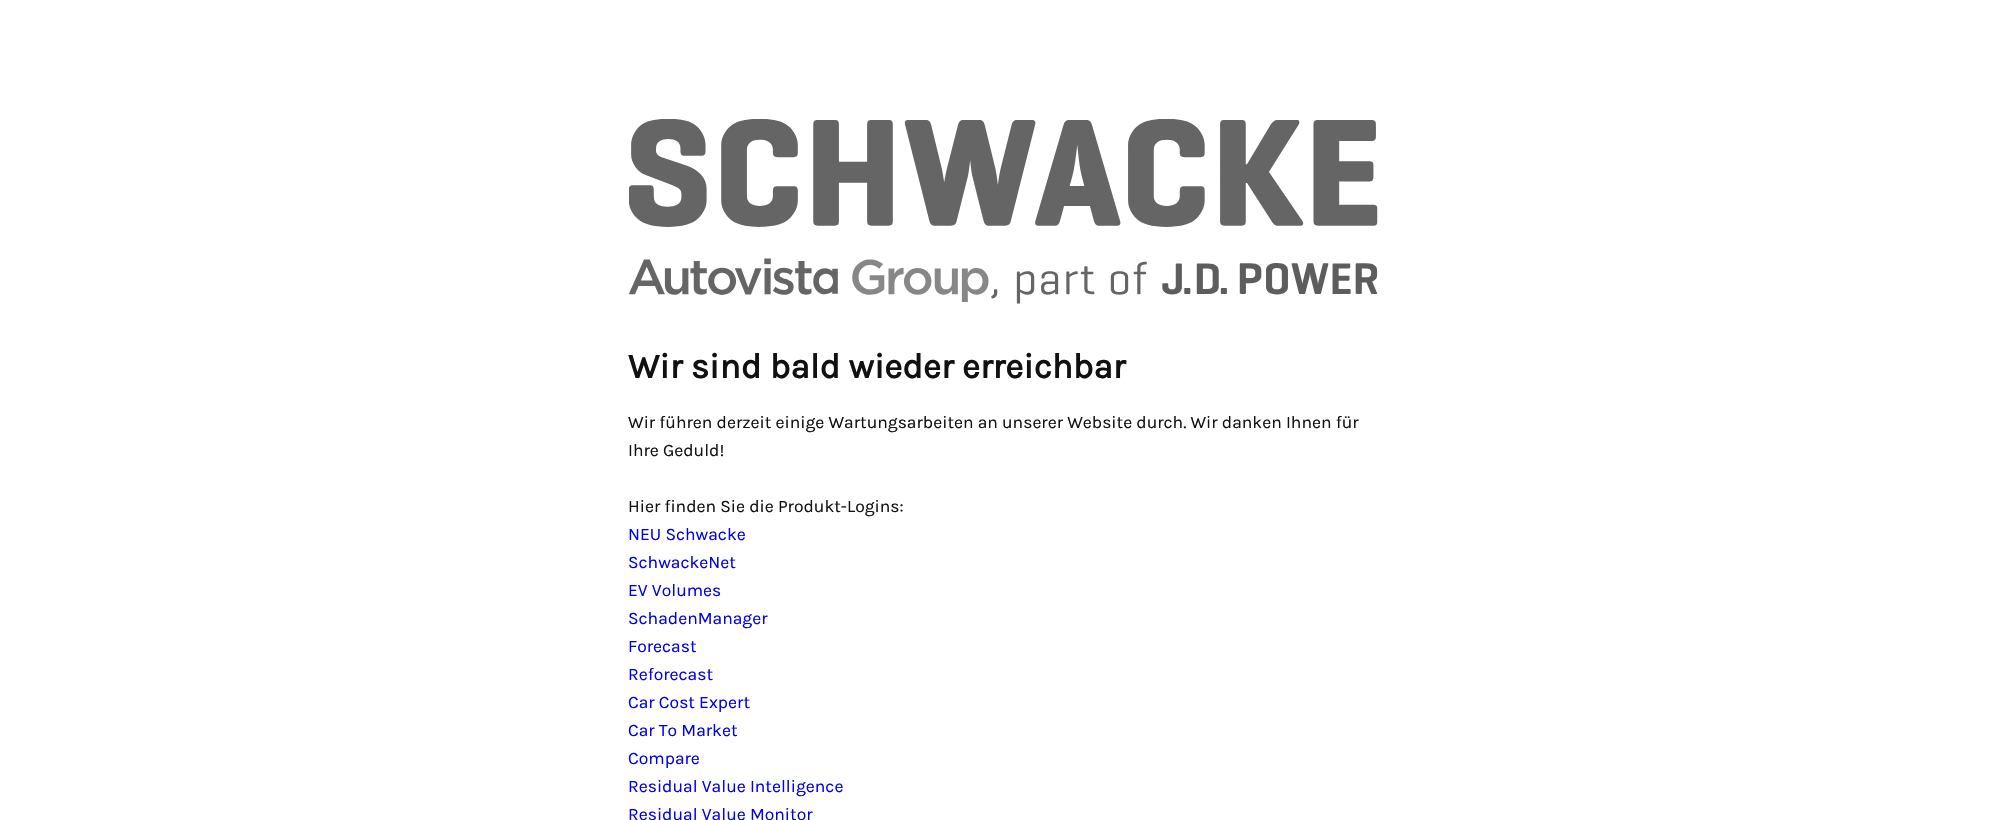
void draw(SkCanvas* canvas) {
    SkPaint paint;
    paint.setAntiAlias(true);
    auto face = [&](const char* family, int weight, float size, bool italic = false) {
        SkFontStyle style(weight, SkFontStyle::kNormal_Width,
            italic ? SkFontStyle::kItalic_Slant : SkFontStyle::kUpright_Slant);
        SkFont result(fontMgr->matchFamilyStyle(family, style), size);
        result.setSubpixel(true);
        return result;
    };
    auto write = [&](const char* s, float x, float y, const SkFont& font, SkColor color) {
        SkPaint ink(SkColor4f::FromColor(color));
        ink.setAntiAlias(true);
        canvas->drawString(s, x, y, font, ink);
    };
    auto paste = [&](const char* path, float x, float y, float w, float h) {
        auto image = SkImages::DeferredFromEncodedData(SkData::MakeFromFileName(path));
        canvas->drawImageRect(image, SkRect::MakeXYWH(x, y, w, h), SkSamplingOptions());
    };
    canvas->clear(SK_ColorWHITE);
    paste("pic1.png", 629, 119, 749, 185);
    auto kFont1 = face("Karla", 700, 35);
    write("Wir sind bald wieder erreichbar", 628, 378, kFont1, SkColorSetRGB(17, 17, 17));
    auto kFont2 = face("Karla", 400, 17.5f);
    write("Wir führen derzeit einige Wartungsarbeiten an unserer Website durch. Wir danken Ihnen für", 628, 428, kFont2, SkColorSetRGB(17, 17, 17));
    write("Ihre Geduld!", 628, 456, kFont2, SkColorSetRGB(17, 17, 17));
    write("Hier finden Sie die Produkt-Logins:", 628, 512, kFont2, SkColorSetRGB(17, 17, 17));
    write("NEU Schwacke", 628, 540, kFont2, SkColorSetRGB(0, 0, 238));
    write("SchwackeNet", 628, 568, kFont2, SkColorSetRGB(0, 0, 238));
    write("EV Volumes", 628, 596, kFont2, SkColorSetRGB(0, 0, 238));
    write("SchadenManager", 628, 624, kFont2, SkColorSetRGB(0, 0, 238));
    write("Forecast", 628, 652, kFont2, SkColorSetRGB(0, 0, 238));
    write("Reforecast", 628, 680, kFont2, SkColorSetRGB(0, 0, 238));
    write("Car Cost Expert", 628, 708, kFont2, SkColorSetRGB(0, 0, 238));
    write("Car To Market", 628, 736, kFont2, SkColorSetRGB(0, 0, 238));
    write("Compare", 628, 764, kFont2, SkColorSetRGB(0, 0, 238));
    write("Residual Value Intelligence", 628, 792, kFont2, SkColorSetRGB(0, 0, 238));
    write("Residual Value Monitor", 628, 820, kFont2, SkColorSetRGB(0, 0, 238));
}
